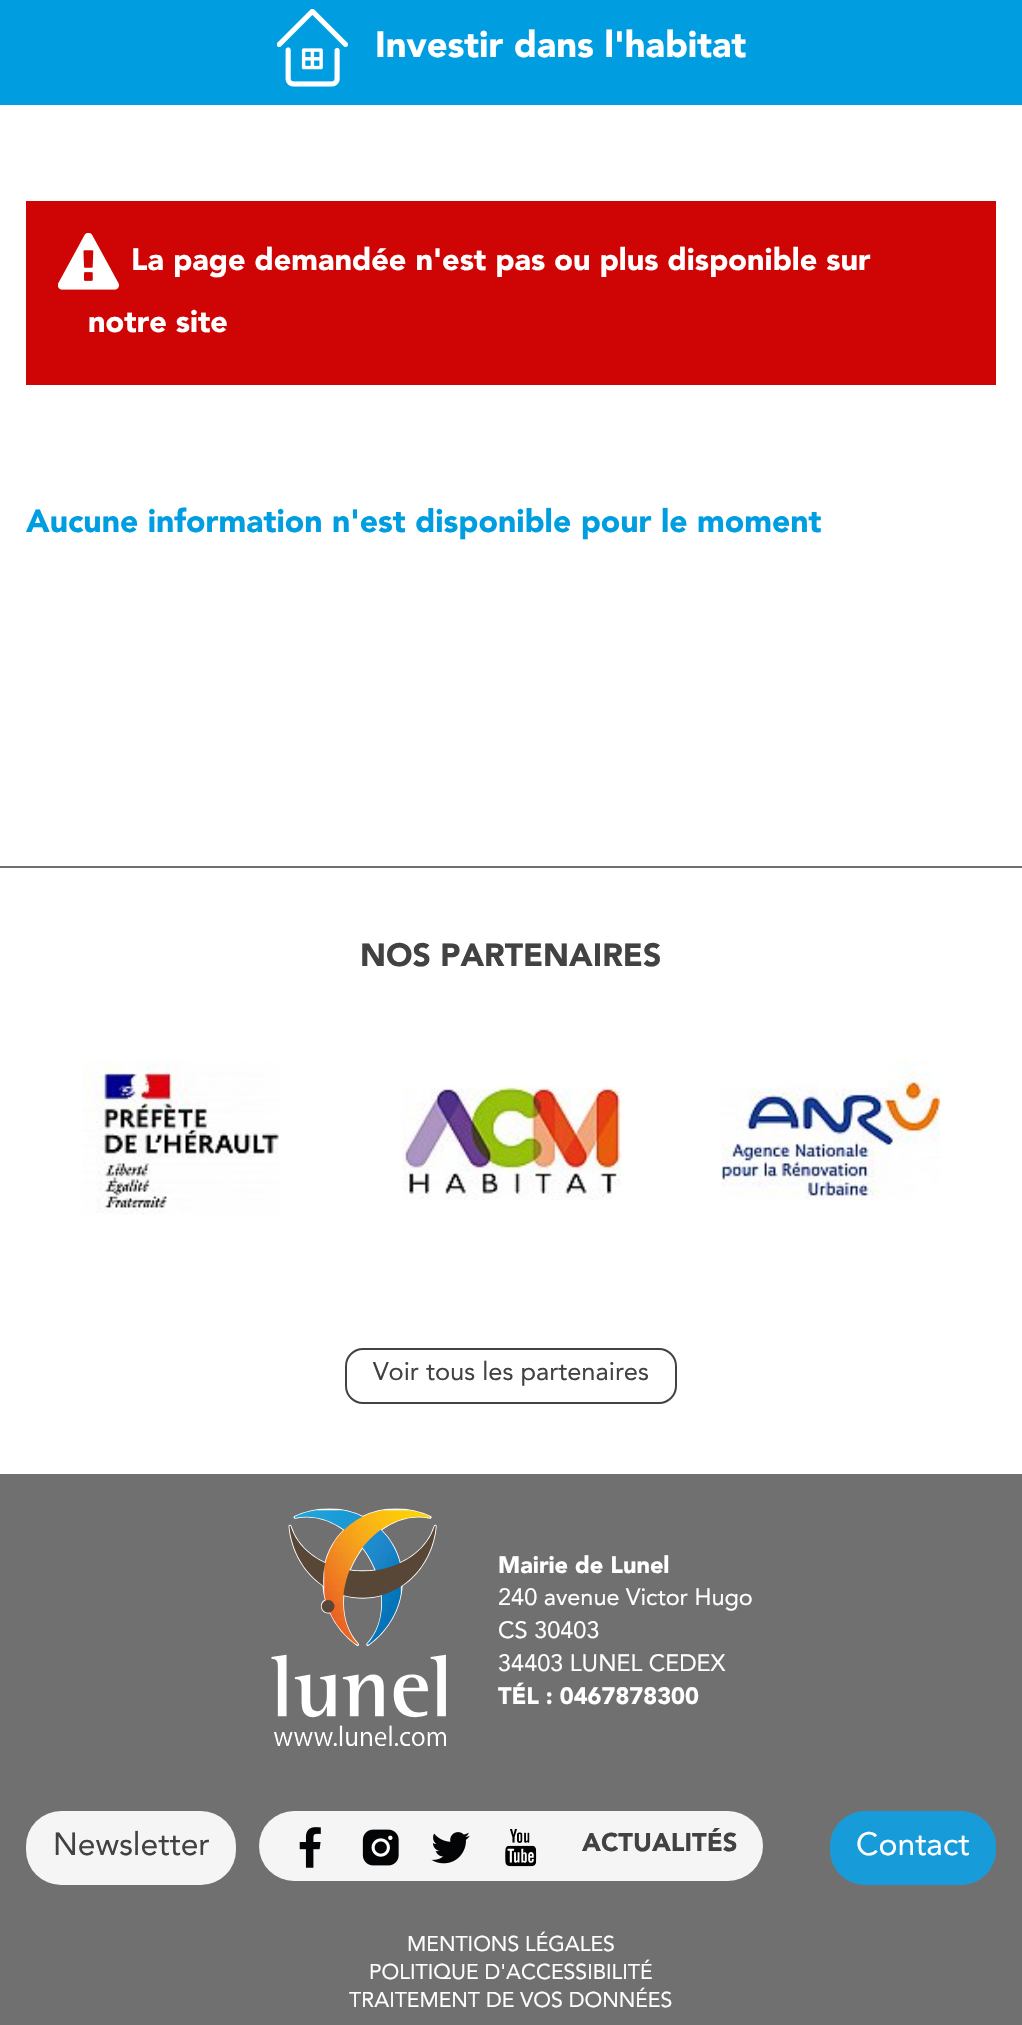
void draw(SkCanvas* canvas) {
    SkPaint paint;
    paint.setAntiAlias(true);
    auto face = [&](const char* family, int weight, float size, bool italic = false) {
        SkFontStyle style(weight, SkFontStyle::kNormal_Width,
            italic ? SkFontStyle::kItalic_Slant : SkFontStyle::kUpright_Slant);
        SkFont result(fontMgr->matchFamilyStyle(family, style), size);
        result.setSubpixel(true);
        return result;
    };
    auto write = [&](const char* s, float x, float y, const SkFont& font, SkColor color) {
        SkPaint ink(SkColor4f::FromColor(color));
        ink.setAntiAlias(true);
        canvas->drawString(s, x, y, font, ink);
    };
    auto block = [&](float x, float y, float w, float h, SkColor color) {
        SkPaint ink(SkColor4f::FromColor(color));
        ink.setAntiAlias(true);
        canvas->drawRect(SkRect::MakeXYWH(x, y, w, h), ink);
    };
    auto card = [&](float x, float y, float w, float h, float radius, SkColor color) {
        SkPaint ink(SkColor4f::FromColor(color));
        ink.setAntiAlias(true);
        canvas->drawRoundRect(SkRect::MakeXYWH(x, y, w, h), radius, radius, ink);
    };
    auto paste = [&](const char* path, float x, float y, float w, float h) {
        auto image = SkImages::DeferredFromEncodedData(SkData::MakeFromFileName(path));
        canvas->drawImageRect(image, SkRect::MakeXYWH(x, y, w, h), SkSamplingOptions());
    };
    canvas->clear(SK_ColorWHITE);
    block(0, 0, 1022, 105, SkColorSetRGB(0, 158, 224));
    paste("pic1.png", 277, 9, 71, 78);
    auto kFont1 = face("Avenir", 900, 36.25f);
    write("Investir dans l'habitat", 375, 57, kFont1, SK_ColorWHITE);
    block(26, 201, 970, 184, SkColorSetRGB(207, 4, 4));
    paste("pic2.png", 58, 233, 61, 57);
    auto kFont2 = face("Avenir", 900, 30.6f);
    write("La page demandée n'est pas ou plus disponible sur", 131, 270, kFont2, SK_ColorWHITE);
    write("notre site", 88, 332, kFont2, SK_ColorWHITE);
    auto kFont3 = face("Avenir", 900, 31.9f);
    write("Aucune information n'est disponible pour le moment", 26, 532, kFont3, SkColorSetRGB(0, 158, 224));
    block(0, 866, 1022, 2, SkColorSetRGB(112, 112, 112));
    write("NOS PARTENAIRES", 360, 966, kFont3, SkColorSetRGB(66, 66, 66));
    paste("pic3.png", 82, 1060, 197, 155);
    paste("pic4.png", 402, 1086, 220, 115);
    paste("pic5.png", 721, 1059, 219, 142);
    paint.setStyle(SkPaint::kStroke_Style);
    paint.setStrokeWidth(2);
    paint.setColor(SkColorSetRGB(66, 66, 66));
    canvas->drawRoundRect(SkRect::MakeXYWH(346, 1349, 330, 54), 17, 17, paint);
    auto kFont4 = face("Avenir", 400, 25.5f);
    write("Voir tous les partenaires", 373, 1380, kFont4, SkColorSetRGB(66, 66, 66));
    block(0, 1474, 1022, 551, SkColorSetRGB(112, 112, 112));
    paste("pic6.png", 271, 1508, 175, 238);
    auto kFont5 = face("Avenir", 900, 23.5f);
    write("Mairie de Lunel", 498, 1573, kFont5, SK_ColorWHITE);
    auto kFont6 = face("Avenir", 400, 23.5f);
    write("240 avenue Victor Hugo", 498, 1605, kFont6, SK_ColorWHITE);
    write("CS 30403", 498, 1638, kFont6, SK_ColorWHITE);
    write("34403 LUNEL CEDEX", 498, 1671, kFont6, SK_ColorWHITE);
    write("TÉL : 0467878300", 498, 1704, kFont5, SK_ColorWHITE);
    card(259, 1811, 504, 70, 35, SkColorSetRGB(245, 245, 245));
    paste("pic7.png", 299, 1827, 22, 41);
    paste("pic8.png", 362, 1829, 37, 37);
    paste("pic9.png", 431, 1832, 39, 32);
    paste("pic10.png", 505, 1829, 32, 38);
    auto kFont7 = face("Avenir", 900, 25.5f);
    write("ACTUALITÉS", 582, 1851, kFont7, SkColorSetRGB(66, 66, 66));
    card(26, 1811, 210, 74, 35, SkColorSetRGB(245, 245, 245));
    auto kFont8 = face("Avenir", 400, 31.9f);
    write("Newsletter", 53, 1855, kFont8, SkColorSetRGB(66, 66, 66));
    card(830, 1811, 166, 74, 35, SkColorSetRGB(24, 156, 217));
    write("Contact", 856, 1855, kFont8, SK_ColorWHITE);
    auto kFont9 = face("Avenir", 400, 21.25f);
    write("MENTIONS LÉGALES", 407, 1951, kFont9, SK_ColorWHITE);
    write("POLITIQUE D'ACCESSIBILITÉ", 369, 1979, kFont9, SK_ColorWHITE);
    write("TRAITEMENT DE VOS DONNÉES", 349, 2007, kFont9, SK_ColorWHITE);
}
